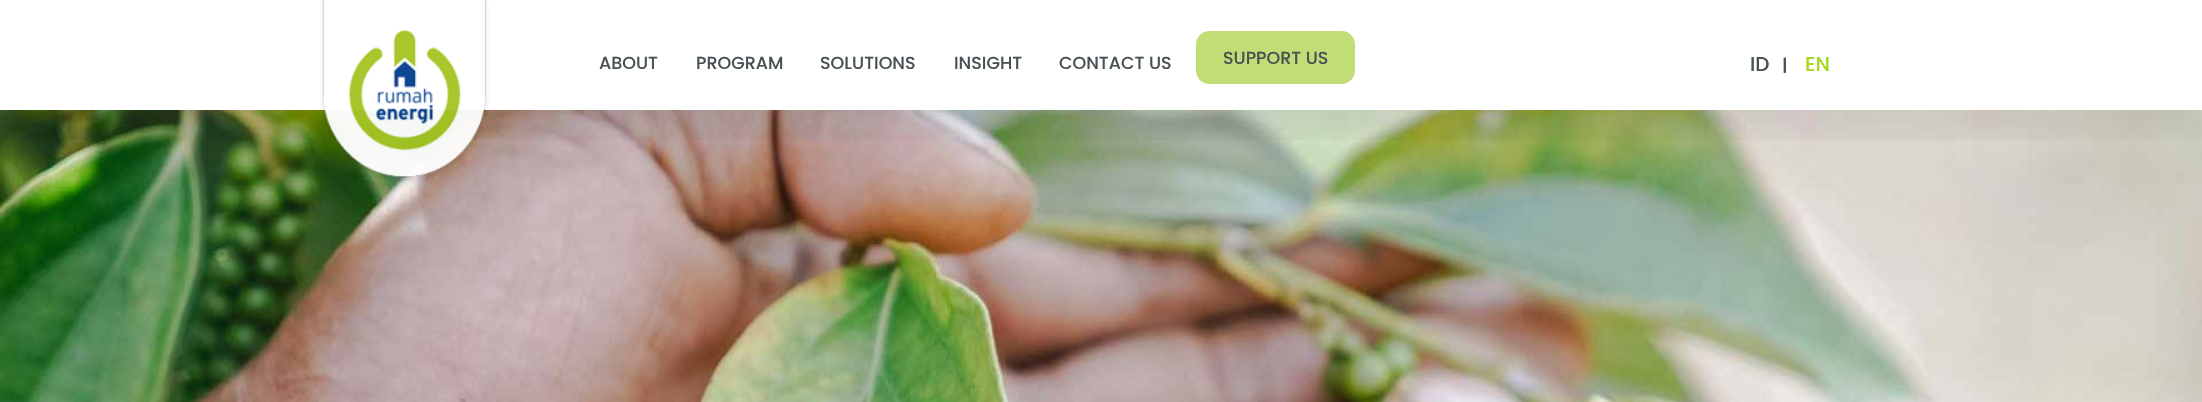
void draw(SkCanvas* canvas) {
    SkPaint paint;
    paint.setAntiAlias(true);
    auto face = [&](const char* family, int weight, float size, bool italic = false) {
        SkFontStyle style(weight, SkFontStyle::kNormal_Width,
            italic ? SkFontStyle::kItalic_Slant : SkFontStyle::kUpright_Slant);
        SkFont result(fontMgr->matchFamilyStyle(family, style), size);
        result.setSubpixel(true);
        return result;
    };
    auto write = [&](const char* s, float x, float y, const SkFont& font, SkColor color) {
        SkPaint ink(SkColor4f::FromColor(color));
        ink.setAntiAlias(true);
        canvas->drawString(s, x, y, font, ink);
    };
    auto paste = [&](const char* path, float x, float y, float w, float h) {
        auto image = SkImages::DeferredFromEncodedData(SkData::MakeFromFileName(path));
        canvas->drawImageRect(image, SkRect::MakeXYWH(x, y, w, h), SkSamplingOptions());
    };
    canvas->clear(SK_ColorWHITE);
    paste("pic2.png", 0, 110, 2202, 292);
    canvas->save();
    canvas->clipRect(SkRect::MakeXYWH(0, 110, 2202, 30));
    paint.setColor(SkColorSetARGB(18, 0, 0, 0));
    paint.setMaskFilter(SkMaskFilter::MakeBlur(kNormal_SkBlurStyle, 12.5f));
    canvas->drawRect(SkRect::MakeXYWH(0, 23, 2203, 110), paint);
    paint.setMaskFilter(nullptr);
    canvas->restore();
    paste("pic1.png", 320, 0, 169, 183);
    auto kFont1 = face("Poppins", 500, 17.5f);
    write("ABOUT", 599, 69, kFont1, SkColorSetRGB(72, 81, 84));
    write("PROGRAM", 696, 69, kFont1, SkColorSetRGB(72, 81, 84));
    write("SOLUTIONS", 820, 69, kFont1, SkColorSetRGB(72, 81, 84));
    write("INSIGHT", 954, 69, kFont1, SkColorSetRGB(72, 81, 84));
    write("CONTACT US", 1059, 69, kFont1, SkColorSetRGB(72, 81, 84));
    paint.setColor(SkColorSetRGB(193, 221, 118));
    canvas->drawRoundRect(SkRect::MakeXYWH(1196.5f, 31.5f, 158, 52), 12.5f, 12.5f, paint);
    paint.setStyle(SkPaint::kStroke_Style);
    paint.setStrokeWidth(1);
    canvas->drawRoundRect(SkRect::MakeXYWH(1196.5f, 31.5f, 158, 52), 12.5f, 12.5f, paint);
    write("SUPPORT US", 1223, 64, kFont1, SkColorSetRGB(72, 81, 84));
    auto kFont2 = face("Poppins", 500, 20);
    write("ID", 1750, 71, kFont2, SkColorSetRGB(72, 81, 84));
    auto kFont3 = face("Poppins", 700, 16);
    write("|", 1782, 71, kFont3, SkColorSetRGB(72, 81, 84));
    write("EN", 1805, 71, kFont2, SkColorSetRGB(167, 216, 33));
}
